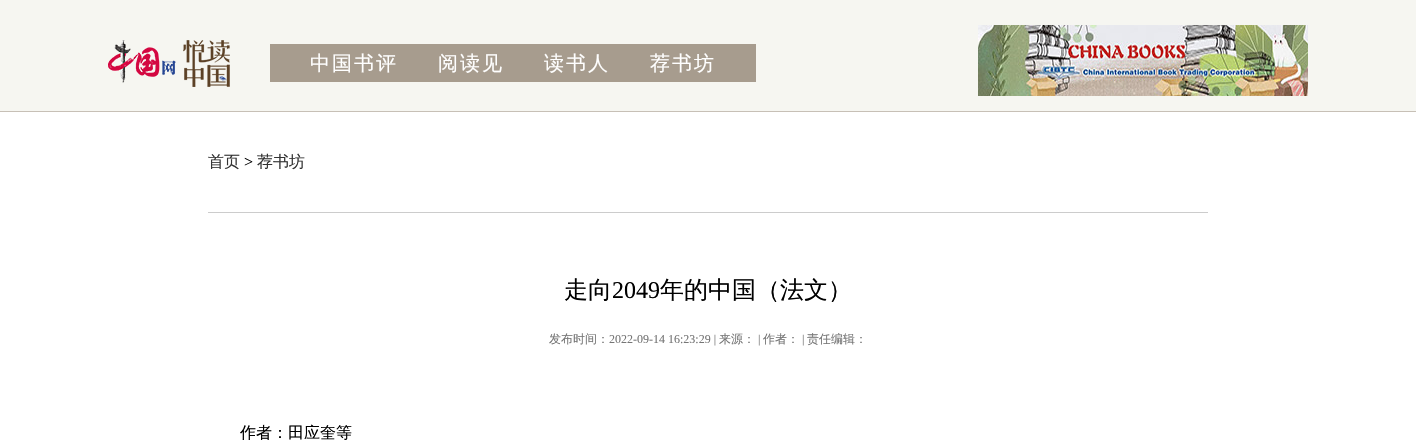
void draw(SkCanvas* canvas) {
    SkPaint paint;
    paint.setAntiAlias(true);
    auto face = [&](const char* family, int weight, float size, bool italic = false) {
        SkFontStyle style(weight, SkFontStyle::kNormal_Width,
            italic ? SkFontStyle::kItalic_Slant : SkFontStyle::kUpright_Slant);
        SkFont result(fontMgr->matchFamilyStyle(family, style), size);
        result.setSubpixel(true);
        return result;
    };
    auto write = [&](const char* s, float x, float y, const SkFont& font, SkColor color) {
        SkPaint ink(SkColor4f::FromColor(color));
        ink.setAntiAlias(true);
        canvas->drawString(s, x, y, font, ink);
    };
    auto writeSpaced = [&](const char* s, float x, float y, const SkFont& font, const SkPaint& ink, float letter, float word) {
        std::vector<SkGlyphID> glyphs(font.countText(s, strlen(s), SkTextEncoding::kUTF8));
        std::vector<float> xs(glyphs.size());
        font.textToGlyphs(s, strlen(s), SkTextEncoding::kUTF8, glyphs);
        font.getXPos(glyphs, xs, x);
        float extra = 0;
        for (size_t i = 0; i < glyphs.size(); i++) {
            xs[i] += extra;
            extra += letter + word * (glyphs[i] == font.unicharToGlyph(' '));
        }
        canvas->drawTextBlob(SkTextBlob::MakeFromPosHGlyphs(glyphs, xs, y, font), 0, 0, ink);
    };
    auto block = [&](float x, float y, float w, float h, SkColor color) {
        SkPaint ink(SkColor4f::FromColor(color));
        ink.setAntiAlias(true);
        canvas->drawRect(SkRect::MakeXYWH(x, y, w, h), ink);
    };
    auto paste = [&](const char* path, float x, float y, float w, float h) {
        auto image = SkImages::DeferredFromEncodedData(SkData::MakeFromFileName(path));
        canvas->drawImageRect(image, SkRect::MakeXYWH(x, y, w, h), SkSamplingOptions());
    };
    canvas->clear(SK_ColorWHITE);
    block(0, 0, 1416, 111, SkColorSetRGB(246, 246, 241));
    paste("pic1.png", 108, 40, 68, 43);
    paste("pic2.png", 183, 40, 47, 47);
    block(270, 44, 486, 38, SkColorSetRGB(167, 156, 142));
    auto kFont1 = face("WenQuanYi Zen Hei", 500, 20);
    paint.setColor(SK_ColorWHITE);
    writeSpaced("中国书评", 310, 70, kFont1, paint, 2, 0);
    writeSpaced("阅读见", 438, 70, kFont1, paint, 2, 0);
    writeSpaced("读书人", 544, 70, kFont1, paint, 2, 0);
    writeSpaced("荐书坊", 650, 70, kFont1, paint, 2, 0);
    paste("pic3.png", 978, 25, 330, 71);
    block(0, 111, 1416, 1, SkColorSetRGB(199, 192, 182));
    block(208, 212, 1000, 1, SkColorSetRGB(204, 204, 204));
    auto kFont2 = face("WenQuanYi Zen Hei", 500, 16);
    write("首页", 208, 167, kFont2, SkColorSetRGB(51, 51, 51));
    auto kFont3 = face("Liberation Serif", 400, 16);
    write(">", 244, 167, kFont3, SK_ColorBLACK);
    write("荐书坊", 257, 167, kFont2, SkColorSetRGB(51, 51, 51));
    auto kFont4 = face("WenQuanYi Zen Hei", 500, 24);
    write("走向", 564, 298, kFont4, SK_ColorBLACK);
    auto kFont5 = face("Liberation Serif", 400, 24);
    write("2049", 612, 298, kFont5, SK_ColorBLACK);
    write("年的中国（法文）", 660, 298, kFont4, SK_ColorBLACK);
    auto kFont6 = face("WenQuanYi Zen Hei", 500, 12);
    write("发布时间：", 549, 343, kFont6, SkColorSetRGB(117, 117, 117));
    auto kFont7 = face("Liberation Serif", 400, 12);
    write("2022-09-14 16:23:29 |", 609, 343, kFont7, SkColorSetRGB(117, 117, 117));
    write("来源：", 719, 343, kFont6, SkColorSetRGB(117, 117, 117));
    write("|", 758, 343, kFont7, SkColorSetRGB(117, 117, 117));
    write("作者：", 763, 343, kFont6, SkColorSetRGB(117, 117, 117));
    write("|", 802, 343, kFont7, SkColorSetRGB(117, 117, 117));
    write("责任编辑：", 807, 343, kFont6, SkColorSetRGB(117, 117, 117));
    write("作者：田应奎等", 240, 438, kFont2, SK_ColorBLACK);
}
